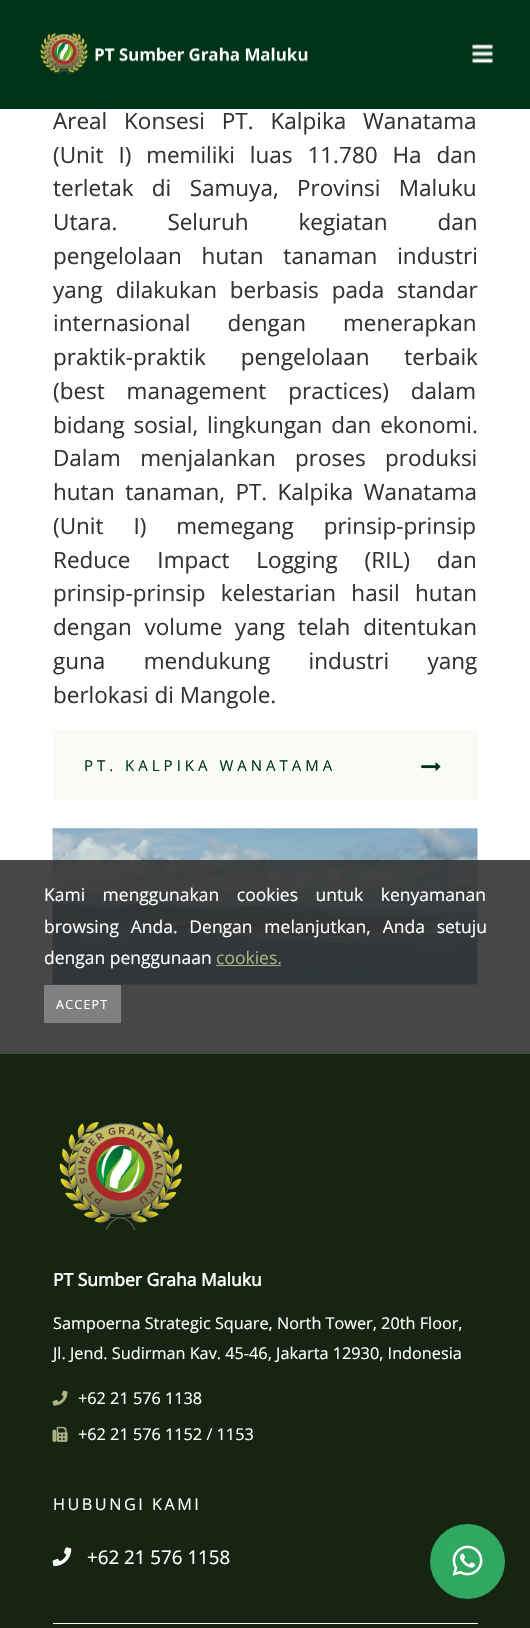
void draw(SkCanvas* canvas) {
    SkPaint paint;
    paint.setAntiAlias(true);
    auto face = [&](const char* family, int weight, float size, bool italic = false) {
        SkFontStyle style(weight, SkFontStyle::kNormal_Width,
            italic ? SkFontStyle::kItalic_Slant : SkFontStyle::kUpright_Slant);
        SkFont result(fontMgr->matchFamilyStyle(family, style), size);
        result.setSubpixel(true);
        return result;
    };
    auto write = [&](const char* s, float x, float y, const SkFont& font, SkColor color) {
        SkPaint ink(SkColor4f::FromColor(color));
        ink.setAntiAlias(true);
        canvas->drawString(s, x, y, font, ink);
    };
    auto writeSpaced = [&](const char* s, float x, float y, const SkFont& font, const SkPaint& ink, float letter, float word) {
        std::vector<SkGlyphID> glyphs(font.countText(s, strlen(s), SkTextEncoding::kUTF8));
        std::vector<float> xs(glyphs.size());
        font.textToGlyphs(s, strlen(s), SkTextEncoding::kUTF8, glyphs);
        font.getXPos(glyphs, xs, x);
        float extra = 0;
        for (size_t i = 0; i < glyphs.size(); i++) {
            xs[i] += extra;
            extra += letter + word * (glyphs[i] == font.unicharToGlyph(' '));
        }
        canvas->drawTextBlob(SkTextBlob::MakeFromPosHGlyphs(glyphs, xs, y, font), 0, 0, ink);
    };
    auto block = [&](float x, float y, float w, float h, SkColor color) {
        SkPaint ink(SkColor4f::FromColor(color));
        ink.setAntiAlias(true);
        canvas->drawRect(SkRect::MakeXYWH(x, y, w, h), ink);
    };
    auto paste = [&](const char* path, float x, float y, float w, float h) {
        auto image = SkImages::DeferredFromEncodedData(SkData::MakeFromFileName(path));
        canvas->drawImageRect(image, SkRect::MakeXYWH(x, y, w, h), SkSamplingOptions());
    };
    canvas->clear(SK_ColorWHITE);
    block(0, 0, 530, 109, SkColorSetRGB(0, 52, 24));
    paste("pic1.png", 40, 33, 268, 43);
    paste("pic2.png", 472, 44, 21, 20);
    auto kFont1 = face("Open Sans", 400, 22.5f);
    paint.setColor(SkColorSetRGB(51, 51, 51));
    writeSpaced("Areal Konsesi PT. Kalpika Wanatama", 53, 129, kFont1, paint, 0, 11);
    writeSpaced("(Unit I) memiliki luas 11.780 Ha dan", 53, 163, kFont1, paint, 0, 9);
    writeSpaced("terletak di Samuya, Provinsi Maluku", 53, 196, kFont1, paint, 0, 12.5f);
    writeSpaced("Utara. Seluruh kegiatan dan", 53, 230, kFont1, paint, 0, 44);
    writeSpaced("pengelolaan hutan tanaman industri", 53, 264, kFont1, paint, 0, 14);
    writeSpaced("yang dilakukan berbasis pada standar", 53, 298, kFont1, paint, 0, 7);
    writeSpaced("internasional dengan menerapkan", 53, 331, kFont1, paint, 0, 31);
    writeSpaced("praktik-praktik pengelolaan terbaik", 53, 365, kFont1, paint, 0, 29);
    writeSpaced("(best management practices) dalam", 53, 399, kFont1, paint, 0, 16);
    writeSpaced("bidang sosial, lingkungan dan ekonomi.", 53, 433, kFont1, paint, 0, 3);
    writeSpaced("Dalam menjalankan proses produksi", 53, 466, kFont1, paint, 0, 13.5f);
    writeSpaced("hutan tanaman, PT. Kalpika Wanatama", 53, 500, kFont1, paint, 0, 4.5f);
    writeSpaced("(Unit I) memegang prinsip-prinsip", 53, 534, kFont1, paint, 0, 24);
    writeSpaced("Reduce Impact Logging (RIL) dan", 53, 568, kFont1, paint, 0, 21);
    writeSpaced("prinsip-prinsip kelestarian hasil hutan", 53, 601, kFont1, paint, 0, 9.5f);
    writeSpaced("dengan volume yang telah ditentukan", 53, 635, kFont1, paint, 0, 7);
    writeSpaced("guna mendukung industri yang", 53, 669, kFont1, paint, 0, 32.5f);
    write("berlokasi di Mangole.", 53, 703, kFont1, SkColorSetRGB(51, 51, 51));
    block(53, 730, 425, 71, SkColorSetRGB(250, 251, 246));
    auto kFont2 = face("Open Sans", 400, 15);
    paint.setColor(SkColorSetRGB(0, 52, 24));
    writeSpaced("PT. KALPIKA WANATAMA", 84, 771, kFont2, paint, 4, 0);
    paste("pic3.png", 421, 762, 20, 9);
    paste("pic4.png", 52, 828, 426, 157);
    block(0, 860, 530, 194, SkColorSetARGB(230, 51, 51, 51));
    auto kFont3 = face("Open Sans", 400, 17.5f);
    paint.setColor(SK_ColorWHITE);
    writeSpaced("Kami menggunakan cookies untuk kenyamanan", 44, 901, kFont3, paint, 0, 13);
    writeSpaced("browsing Anda. Dengan melanjutkan, Anda setuju", 44, 933, kFont3, paint, 0, 7.25f);
    write("dengan penggunaan", 44, 964, kFont3, SK_ColorWHITE);
    write("cookies.", 216, 964, kFont3, SkColorSetRGB(173, 178, 128));
    block(216, 965, 65, 1, SkColorSetRGB(173, 178, 128));
    block(44, 985, 77, 38, SkColorSetRGB(128, 128, 128));
    auto kFont4 = face("Open Sans", 400, 12.5f);
    writeSpaced("ACCEPT", 56, 1009, kFont4, paint, 1.25f, 0);
    block(0, 1054, 530, 574, SkColorSetRGB(22, 36, 18));
    paste("pic5.png", 59, 1122, 123, 108);
    auto kFont5 = face("Open Sans", 700, 17.5f);
    write("PT Sumber Graha Maluku", 53, 1286, kFont5, SK_ColorWHITE);
    auto kFont6 = face("Open Sans", 400, 16.25f);
    write("Sampoerna Strategic Square, North Tower, 20th Floor,", 53, 1329, kFont6, SK_ColorWHITE);
    write("Jl. Jend. Sudirman Kav. 45-46, Jakarta 12930, Indonesia", 53, 1359, kFont6, SK_ColorWHITE);
    paste("pic6.png", 52, 1390, 16, 16);
    write("+62 21 576 1138", 78, 1404, kFont6, SK_ColorWHITE);
    paste("pic7.png", 52, 1426, 16, 16);
    write("+62 21 576 1152 / 1153", 78, 1440, kFont6, SK_ColorWHITE);
    writeSpaced("HUBUNGI KAMI", 53, 1510, kFont6, paint, 2.5f, 0);
    paste("pic8.png", 52, 1547, 20, 20);
    auto kFont7 = face("Open Sans", 400, 18.75f);
    write("+62 21 576 1158", 87, 1564, kFont7, SK_ColorWHITE);
    block(53, 1623, 425, 1, SK_ColorWHITE);
    paint.setColor(SkColorSetRGB(49, 168, 98));
    canvas->drawCircle(467.5f, 1561.5f, 37.5f, paint);
    paste("pic9.png", 452, 1545, 31, 31);
}
